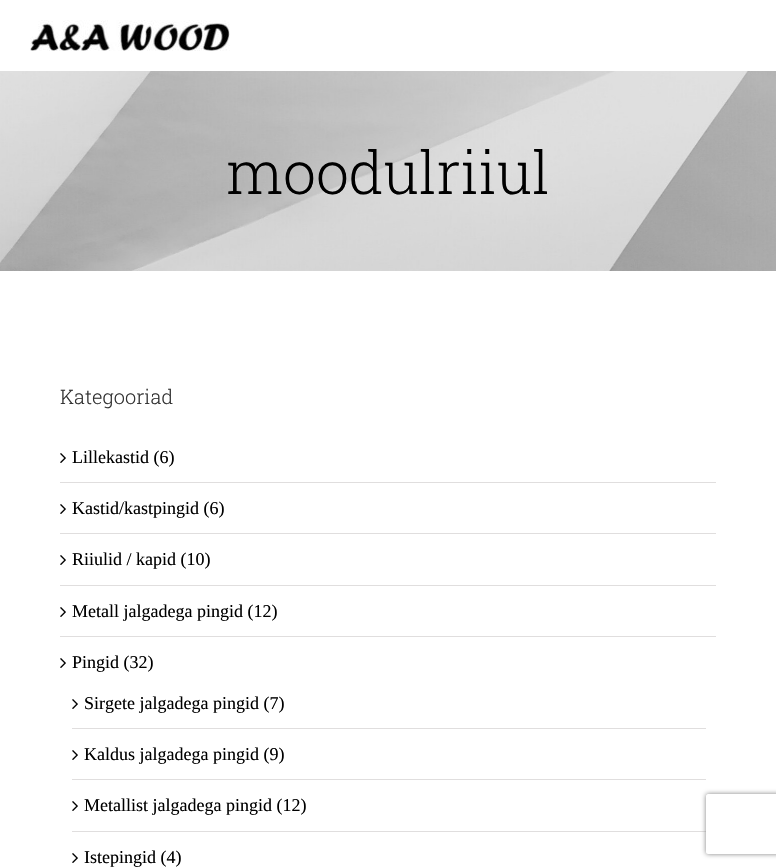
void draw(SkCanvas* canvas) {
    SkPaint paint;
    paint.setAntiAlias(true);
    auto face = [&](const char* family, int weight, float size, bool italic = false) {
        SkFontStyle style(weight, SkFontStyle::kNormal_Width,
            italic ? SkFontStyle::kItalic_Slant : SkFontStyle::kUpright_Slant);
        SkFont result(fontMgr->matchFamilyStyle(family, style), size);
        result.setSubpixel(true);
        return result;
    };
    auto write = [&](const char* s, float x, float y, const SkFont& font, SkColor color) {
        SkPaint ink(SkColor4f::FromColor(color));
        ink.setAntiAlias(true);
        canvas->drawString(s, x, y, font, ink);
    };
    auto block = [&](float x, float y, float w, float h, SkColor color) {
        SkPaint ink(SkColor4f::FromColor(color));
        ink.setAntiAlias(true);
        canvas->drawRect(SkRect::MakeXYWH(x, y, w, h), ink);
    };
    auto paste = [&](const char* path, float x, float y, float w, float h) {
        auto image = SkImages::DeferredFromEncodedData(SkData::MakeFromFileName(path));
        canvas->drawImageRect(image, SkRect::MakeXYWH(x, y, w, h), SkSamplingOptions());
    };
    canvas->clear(SK_ColorWHITE);
    paste("pic1.png", 30, 20, 200, 31);
    paste("pic2.png", 0, 71, 776, 200);
    auto kFont1 = face("Roboto Slab", 300, 59);
    write("moodulriiul", 226, 194, kFont1, SK_ColorBLACK);
    auto kFont2 = face("Roboto Slab", 300, 20);
    write("Kategooriad", 60, 404, kFont2, SkColorSetRGB(51, 51, 51));
    block(60, 482, 656, 1, SkColorSetRGB(224, 222, 222));
    paste("pic3.png", 60, 453, 6, 10);
    auto kFont3 = face("Liberation Serif", 400, 18);
    write("Lillekastid (6)", 72, 463, kFont3, SK_ColorBLACK);
    block(60, 533, 656, 1, SkColorSetRGB(224, 222, 222));
    paste("pic3.png", 60, 504, 6, 10);
    write("Kastid/kastpingid (6)", 72, 514, kFont3, SK_ColorBLACK);
    block(60, 585, 656, 1, SkColorSetRGB(224, 222, 222));
    paste("pic3.png", 60, 555, 6, 10);
    write("Riiulid / kapid (10)", 72, 565, kFont3, SK_ColorBLACK);
    block(60, 636, 656, 1, SkColorSetRGB(224, 222, 222));
    paste("pic3.png", 60, 607, 6, 10);
    write("Metall jalgadega pingid (12)", 72, 617, kFont3, SK_ColorBLACK);
    paste("pic3.png", 60, 658, 6, 10);
    write("Pingid (32)", 72, 668, kFont3, SK_ColorBLACK);
    block(72, 728, 634, 1, SkColorSetRGB(224, 222, 222));
    paste("pic3.png", 72, 699, 6, 10);
    write("Sirgete jalgadega pingid (7)", 84, 709, kFont3, SK_ColorBLACK);
    block(72, 779, 634, 1, SkColorSetRGB(224, 222, 222));
    paste("pic3.png", 72, 750, 6, 10);
    write("Kaldus jalgadega pingid (9)", 84, 760, kFont3, SK_ColorBLACK);
    block(72, 831, 634, 1, SkColorSetRGB(224, 222, 222));
    paste("pic3.png", 72, 801, 6, 10);
    write("Metallist jalgadega pingid (12)", 84, 811, kFont3, SK_ColorBLACK);
    paste("pic3.png", 72, 853, 6, 10);
    write("Istepingid (4)", 84, 863, kFont3, SK_ColorBLACK);
    canvas->save();
    canvas->clipPath(SkPathBuilder(SkPathFillType::kEvenOdd).moveTo(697, 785).lineTo(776, 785).lineTo(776, 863).lineTo(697, 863).close().moveTo(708, 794).lineTo(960, 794).cubicTo(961, 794, 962, 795, 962, 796).lineTo(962, 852).cubicTo(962, 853, 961, 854, 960, 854).lineTo(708, 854).cubicTo(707, 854, 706, 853, 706, 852).lineTo(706, 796).cubicTo(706, 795, 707, 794, 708, 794).close().detach(), true);
    paint.setColor(SkColorSetRGB(128, 128, 128));
    paint.setMaskFilter(SkMaskFilter::MakeBlur(kNormal_SkBlurStyle, 2.5f));
    canvas->drawRoundRect(SkRect::MakeXYWH(706, 794, 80, 60), 2, 2, paint);
    paint.setMaskFilter(nullptr);
    canvas->restore();
}
